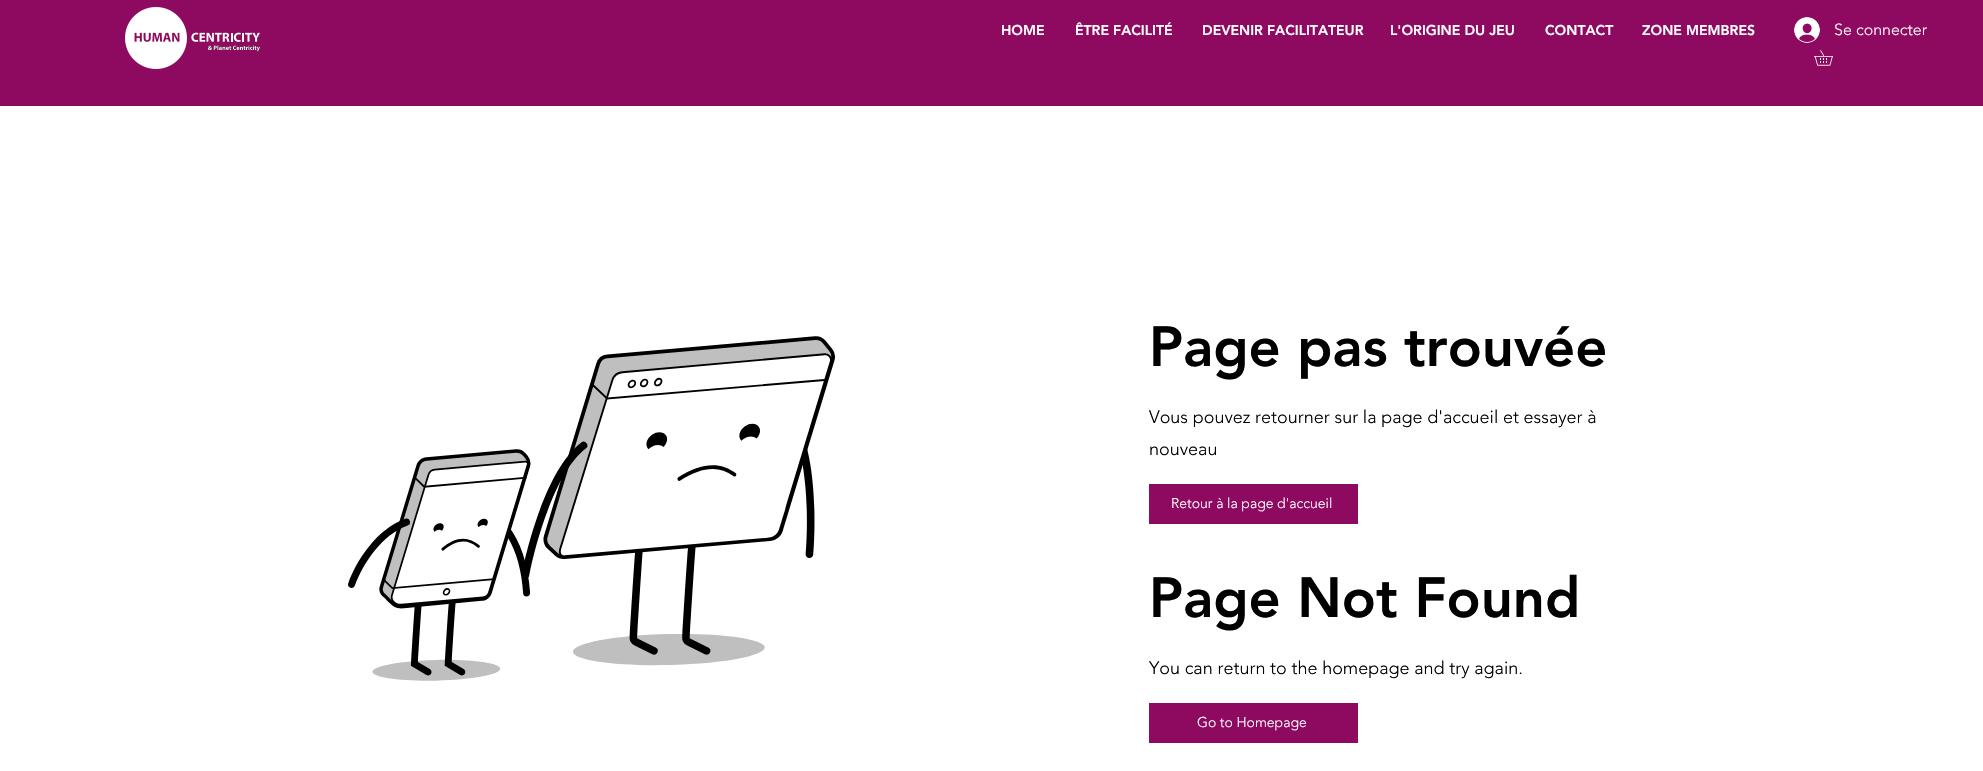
void draw(SkCanvas* canvas) {
    SkPaint paint;
    paint.setAntiAlias(true);
    auto face = [&](const char* family, int weight, float size, bool italic = false) {
        SkFontStyle style(weight, SkFontStyle::kNormal_Width,
            italic ? SkFontStyle::kItalic_Slant : SkFontStyle::kUpright_Slant);
        SkFont result(fontMgr->matchFamilyStyle(family, style), size);
        result.setSubpixel(true);
        return result;
    };
    auto write = [&](const char* s, float x, float y, const SkFont& font, SkColor color) {
        SkPaint ink(SkColor4f::FromColor(color));
        ink.setAntiAlias(true);
        canvas->drawString(s, x, y, font, ink);
    };
    auto block = [&](float x, float y, float w, float h, SkColor color) {
        SkPaint ink(SkColor4f::FromColor(color));
        ink.setAntiAlias(true);
        canvas->drawRect(SkRect::MakeXYWH(x, y, w, h), ink);
    };
    auto paste = [&](const char* path, float x, float y, float w, float h) {
        auto image = SkImages::DeferredFromEncodedData(SkData::MakeFromFileName(path));
        canvas->drawImageRect(image, SkRect::MakeXYWH(x, y, w, h), SkSamplingOptions());
    };
    canvas->clear(SK_ColorWHITE);
    block(0, 0, 1983, 106, SkColorSetRGB(142, 10, 96));
    paste("pic1.png", 125, 7, 135, 62);
    auto kFont1 = face("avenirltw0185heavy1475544", 900, 14);
    write("HOME", 1001, 35, kFont1, SK_ColorWHITE);
    write("ÊTRE FACILITÉ", 1075, 35, kFont1, SK_ColorWHITE);
    write("DEVENIR FACILITATEUR", 1202, 35, kFont1, SK_ColorWHITE);
    write("L'ORIGINE DU JEU", 1390, 35, kFont1, SK_ColorWHITE);
    write("CONTACT", 1545, 35, kFont1, SK_ColorWHITE);
    write("ZONE MEMBRES", 1642, 35, kFont1, SK_ColorWHITE);
    paste("pic2.png", 1794, 17, 26, 26);
    auto kFont2 = face("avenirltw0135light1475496", 300, 16);
    write("Se connecter", 1834, 35, kFont2, SK_ColorWHITE);
    paste("pic3.png", 1814, 50, 19, 16);
    paste("pic4.png", 348, 336, 487, 345);
    auto kFont3 = face("avenirltw0185heavy1475544", 900, 56);
    write("Page pas trouvée", 1149, 366, kFont3, SK_ColorBLACK);
    auto kFont4 = face("avenirltw0135light1475496", 300, 18);
    write("Vous pouvez retourner sur la page d'accueil et essayer à", 1149, 423, kFont4, SK_ColorBLACK);
    write("nouveau", 1149, 455, kFont4, SK_ColorBLACK);
    block(1149, 484, 209, 40, SkColorSetRGB(142, 10, 96));
    auto kFont5 = face("avenirltw0135light1475496", 300, 14);
    write("Retour à la page d'accueil", 1171, 508, kFont5, SK_ColorWHITE);
    write("Page Not Found", 1149, 617, kFont3, SK_ColorBLACK);
    write("You can return to the homepage and try again.", 1149, 674, kFont4, SK_ColorBLACK);
    block(1149, 703, 209, 40, SkColorSetRGB(142, 10, 96));
    write("Go to Homepage", 1197, 727, kFont5, SK_ColorWHITE);
}
